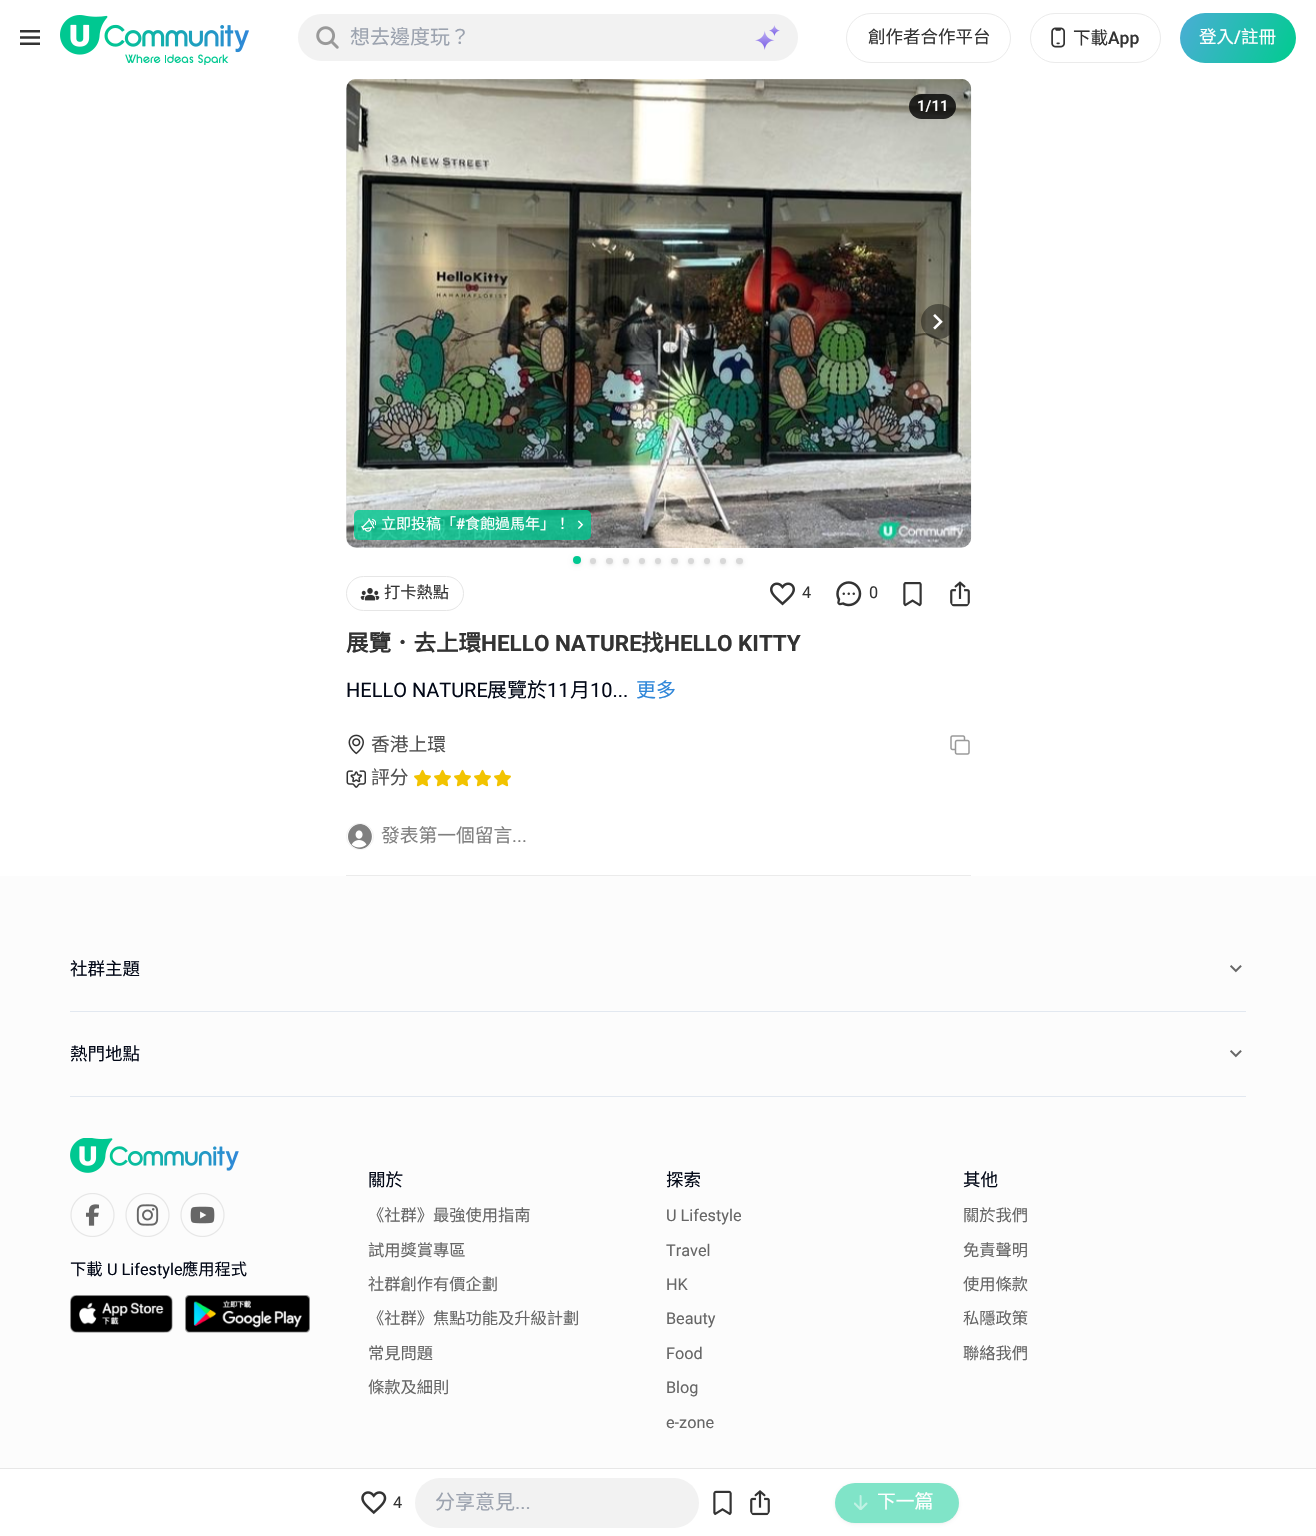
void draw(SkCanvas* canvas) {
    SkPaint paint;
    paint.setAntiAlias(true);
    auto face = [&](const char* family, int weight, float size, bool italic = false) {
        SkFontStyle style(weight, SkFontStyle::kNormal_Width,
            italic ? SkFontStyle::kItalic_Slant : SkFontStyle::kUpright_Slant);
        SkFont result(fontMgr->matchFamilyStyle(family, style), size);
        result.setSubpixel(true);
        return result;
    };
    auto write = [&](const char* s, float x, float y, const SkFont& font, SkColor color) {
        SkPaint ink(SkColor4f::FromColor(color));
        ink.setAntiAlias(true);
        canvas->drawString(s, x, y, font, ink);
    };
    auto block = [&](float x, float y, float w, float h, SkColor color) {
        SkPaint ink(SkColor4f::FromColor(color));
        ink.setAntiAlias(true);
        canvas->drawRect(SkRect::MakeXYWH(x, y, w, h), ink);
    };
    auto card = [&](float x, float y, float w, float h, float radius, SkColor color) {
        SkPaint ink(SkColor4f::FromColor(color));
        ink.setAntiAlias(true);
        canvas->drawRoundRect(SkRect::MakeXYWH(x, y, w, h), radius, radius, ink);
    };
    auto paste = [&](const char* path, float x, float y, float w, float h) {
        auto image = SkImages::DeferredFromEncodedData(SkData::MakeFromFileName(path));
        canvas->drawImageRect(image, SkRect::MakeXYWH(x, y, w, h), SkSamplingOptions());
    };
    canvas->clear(SK_ColorWHITE);
    paste("pic1.png", 20, 30, 20, 15);
    paste("pic2.png", 60, 15, 189, 50);
    card(298, 14, 500, 47, 23.5f, SkColorSetRGB(242, 242, 242));
    paste("pic3.png", 316, 26, 23, 23);
    auto kFont1 = face("Noto Sans CJK HK", 400, 20);
    write("想去邊度玩？", 350, 44, kFont1, SkColorSetRGB(156, 163, 175));
    paste("pic4.png", 755, 25, 25, 25);
    paint.setStyle(SkPaint::kStroke_Style);
    paint.setStrokeWidth(1);
    paint.setColor(SkColorSetRGB(235, 235, 235));
    canvas->drawRoundRect(SkRect::MakeXYWH(846.5f, 13.5f, 164, 49), 24.5f, 24.5f, paint);
    auto kFont2 = face("Noto Sans CJK HK", 400, 17.5f);
    write("創作者合作平台", 868, 43, kFont2, SkColorSetRGB(51, 51, 51));
    canvas->drawRoundRect(SkRect::MakeXYWH(1030.5f, 13.5f, 130, 49), 24.5f, 24.5f, paint);
    paste("pic5.png", 1051, 27, 14, 21);
    write("下載", 1073, 44, kFont2, SkColorSetRGB(51, 51, 51));
    auto kFont3 = face("Roboto", 500, 17.5f);
    write("App", 1108, 44, kFont3, SkColorSetRGB(51, 51, 51));
    paint.setStyle(SkPaint::kFill_Style);
    {
        const SkColor colors[] = {SkColorSetRGB(75, 173, 214), SkColorSetRGB(0, 204, 143)};
        const float stops[] = {0, 1};
        const SkPoint ends[] = {{1181, 11}, {1295, 64}};
        paint.setShader(SkGradientShader::MakeLinear(ends, colors, stops, 2, SkTileMode::kClamp));
        paint.setAlpha(255);
    }
    canvas->drawRoundRect(SkRect::MakeXYWH(1180, 13, 116, 50), 25, 25, paint);
    write("登入", 1199, 43, kFont2, SK_ColorWHITE);
    write("/", 1234, 43, kFont3, SK_ColorWHITE);
    write("註冊", 1241, 43, kFont2, SK_ColorWHITE);
    block(346, 875, 625, 1, SkColorSetRGB(235, 235, 235));
    card(346, 79, 625, 469, 10, SkColorSetRGB(232, 232, 234));
    paste("pic7.png", 346, 79, 626, 469);
    card(909, 94, 47, 25, 12.5f, SkColorSetARGB(204, 0, 0, 0));
    auto kFont4 = face("Roboto", 500, 15);
    write("1/11", 917, 111, kFont4, SK_ColorWHITE);
    paint.setShader(nullptr);
    paint.setColor(SkColorSetARGB(102, 0, 0, 0));
    canvas->drawCircle(938.5f, 321.5f, 17.5f, paint);
    paste("pic6.png", 933, 314, 10, 16);
    card(354, 510, 237, 30, 5, SkColorSetARGB(204, 0, 200, 145));
    paste("pic8.png", 361, 518, 15, 14);
    auto kFont5 = face("Noto Sans CJK HK", 400, 15);
    write("立即投稿「", 381, 529, kFont5, SK_ColorWHITE);
    write("#", 456, 529, kFont4, SK_ColorWHITE);
    write("食飽過馬年」！", 465, 529, kFont5, SK_ColorWHITE);
    paste("pic9.png", 578, 520, 6, 9);
    paint.setColor(SkColorSetARGB(26, 0, 0, 0));
    paint.setMaskFilter(SkMaskFilter::MakeBlur(kNormal_SkBlurStyle, 1.5f));
    canvas->drawRoundRect(SkRect::MakeXYWH(575, 559, 4, 5), 2, 2, paint);
    paint.setMaskFilter(nullptr);
    paint.setMaskFilter(SkMaskFilter::MakeBlur(kNormal_SkBlurStyle, 2.5f));
    canvas->drawRoundRect(SkRect::MakeXYWH(573, 558, 8, 7), 3.5f, 3.5f, paint);
    paint.setMaskFilter(nullptr);
    paint.setColor(SkColorSetRGB(0, 200, 145));
    canvas->drawCircle(577, 560, 4, paint);
    paint.setColor(SkColorSetARGB(26, 0, 0, 0));
    paint.setMaskFilter(SkMaskFilter::MakeBlur(kNormal_SkBlurStyle, 1));
    canvas->drawRoundRect(SkRect::MakeXYWH(591, 560, 4, 4), 2, 2, paint);
    paint.setMaskFilter(nullptr);
    paint.setMaskFilter(SkMaskFilter::MakeBlur(kNormal_SkBlurStyle, 2));
    canvas->drawRoundRect(SkRect::MakeXYWH(590, 559, 6, 6), 3, 3, paint);
    paint.setMaskFilter(nullptr);
    paint.setColor(SkColorSetRGB(216, 216, 216));
    canvas->drawCircle(593, 561, 3, paint);
    paint.setColor(SkColorSetARGB(26, 0, 0, 0));
    paint.setMaskFilter(SkMaskFilter::MakeBlur(kNormal_SkBlurStyle, 1));
    canvas->drawRoundRect(SkRect::MakeXYWH(608, 560, 4, 4), 2, 2, paint);
    paint.setMaskFilter(nullptr);
    paint.setMaskFilter(SkMaskFilter::MakeBlur(kNormal_SkBlurStyle, 2));
    canvas->drawRoundRect(SkRect::MakeXYWH(606, 559, 7, 6), 3, 3, paint);
    paint.setMaskFilter(nullptr);
    card(606, 558, 7, 6, 3, SkColorSetRGB(216, 216, 216));
    paint.setMaskFilter(SkMaskFilter::MakeBlur(kNormal_SkBlurStyle, 1));
    canvas->drawRoundRect(SkRect::MakeXYWH(624, 560, 4, 4), 2, 2, paint);
    paint.setMaskFilter(nullptr);
    paint.setMaskFilter(SkMaskFilter::MakeBlur(kNormal_SkBlurStyle, 2));
    canvas->drawRoundRect(SkRect::MakeXYWH(623, 559, 6, 6), 3, 3, paint);
    paint.setMaskFilter(nullptr);
    paint.setColor(SkColorSetRGB(216, 216, 216));
    canvas->drawCircle(626, 561, 3, paint);
    paint.setColor(SkColorSetARGB(26, 0, 0, 0));
    paint.setMaskFilter(SkMaskFilter::MakeBlur(kNormal_SkBlurStyle, 1));
    canvas->drawRoundRect(SkRect::MakeXYWH(640, 560, 4, 4), 2, 2, paint);
    paint.setMaskFilter(nullptr);
    paint.setMaskFilter(SkMaskFilter::MakeBlur(kNormal_SkBlurStyle, 2));
    canvas->drawRoundRect(SkRect::MakeXYWH(639, 559, 6, 6), 3, 3, paint);
    paint.setMaskFilter(nullptr);
    paint.setColor(SkColorSetRGB(216, 216, 216));
    canvas->drawCircle(642, 561, 3, paint);
    paint.setColor(SkColorSetARGB(26, 0, 0, 0));
    paint.setMaskFilter(SkMaskFilter::MakeBlur(kNormal_SkBlurStyle, 1));
    canvas->drawRoundRect(SkRect::MakeXYWH(656, 560, 4, 4), 2, 2, paint);
    paint.setMaskFilter(nullptr);
    paint.setMaskFilter(SkMaskFilter::MakeBlur(kNormal_SkBlurStyle, 2));
    canvas->drawRoundRect(SkRect::MakeXYWH(655, 559, 6, 6), 3, 3, paint);
    paint.setMaskFilter(nullptr);
    paint.setColor(SkColorSetRGB(216, 216, 216));
    canvas->drawCircle(658, 561, 3, paint);
    paint.setColor(SkColorSetARGB(26, 0, 0, 0));
    paint.setMaskFilter(SkMaskFilter::MakeBlur(kNormal_SkBlurStyle, 1));
    canvas->drawRoundRect(SkRect::MakeXYWH(673, 560, 4, 4), 2, 2, paint);
    paint.setMaskFilter(nullptr);
    paint.setMaskFilter(SkMaskFilter::MakeBlur(kNormal_SkBlurStyle, 2));
    canvas->drawRoundRect(SkRect::MakeXYWH(671, 559, 7, 6), 3, 3, paint);
    paint.setMaskFilter(nullptr);
    card(671, 558, 7, 6, 3, SkColorSetRGB(216, 216, 216));
    paint.setMaskFilter(SkMaskFilter::MakeBlur(kNormal_SkBlurStyle, 1));
    canvas->drawRoundRect(SkRect::MakeXYWH(689, 560, 4, 4), 2, 2, paint);
    paint.setMaskFilter(nullptr);
    paint.setMaskFilter(SkMaskFilter::MakeBlur(kNormal_SkBlurStyle, 2));
    canvas->drawRoundRect(SkRect::MakeXYWH(688, 559, 6, 6), 3, 3, paint);
    paint.setMaskFilter(nullptr);
    paint.setColor(SkColorSetRGB(216, 216, 216));
    canvas->drawCircle(691, 561, 3, paint);
    paint.setColor(SkColorSetARGB(26, 0, 0, 0));
    paint.setMaskFilter(SkMaskFilter::MakeBlur(kNormal_SkBlurStyle, 1));
    canvas->drawRoundRect(SkRect::MakeXYWH(705, 560, 4, 4), 2, 2, paint);
    paint.setMaskFilter(nullptr);
    paint.setMaskFilter(SkMaskFilter::MakeBlur(kNormal_SkBlurStyle, 2));
    canvas->drawRoundRect(SkRect::MakeXYWH(704, 559, 6, 6), 3, 3, paint);
    paint.setMaskFilter(nullptr);
    paint.setColor(SkColorSetRGB(216, 216, 216));
    canvas->drawCircle(707, 561, 3, paint);
    paint.setColor(SkColorSetARGB(26, 0, 0, 0));
    paint.setMaskFilter(SkMaskFilter::MakeBlur(kNormal_SkBlurStyle, 1));
    canvas->drawRoundRect(SkRect::MakeXYWH(721, 560, 4, 4), 2, 2, paint);
    paint.setMaskFilter(nullptr);
    paint.setMaskFilter(SkMaskFilter::MakeBlur(kNormal_SkBlurStyle, 2));
    canvas->drawRoundRect(SkRect::MakeXYWH(720, 559, 6, 6), 3, 3, paint);
    paint.setMaskFilter(nullptr);
    paint.setColor(SkColorSetRGB(216, 216, 216));
    canvas->drawCircle(723, 561, 3, paint);
    paint.setColor(SkColorSetARGB(26, 0, 0, 0));
    paint.setMaskFilter(SkMaskFilter::MakeBlur(kNormal_SkBlurStyle, 1));
    canvas->drawRoundRect(SkRect::MakeXYWH(738, 560, 4, 4), 2, 2, paint);
    paint.setMaskFilter(nullptr);
    paint.setMaskFilter(SkMaskFilter::MakeBlur(kNormal_SkBlurStyle, 2));
    canvas->drawRoundRect(SkRect::MakeXYWH(736, 559, 7, 6), 3, 3, paint);
    paint.setMaskFilter(nullptr);
    card(736, 558, 7, 6, 3, SkColorSetRGB(216, 216, 216));
    paint.setStyle(SkPaint::kStroke_Style);
    paint.setColor(SkColorSetRGB(230, 230, 230));
    canvas->drawRoundRect(SkRect::MakeXYWH(346.5f, 576.5f, 117, 34), 17, 17, paint);
    paste("pic10.png", 360, 588, 20, 13);
    auto kFont6 = face("Noto Sans CJK HK", 400, 16.25f);
    write("打卡熱點", 384, 598, kFont6, SkColorSetRGB(51, 51, 51));
    paste("pic11.png", 770, 582, 25, 24);
    auto kFont7 = face("Roboto", 400, 16.25f);
    write("4", 802, 598, kFont7, SkColorSetRGB(51, 51, 51));
    paste("pic12.png", 836, 581, 26, 26);
    write("0", 869, 598, kFont7, SkColorSetRGB(51, 51, 51));
    paste("pic13.png", 903, 582, 19, 25);
    paste("pic14.png", 950, 581, 20, 26);
    auto kFont8 = face("Noto Sans CJK HK", 700, 22.5f);
    write("展覽．去上環", 346, 651, kFont8, SkColorSetRGB(51, 51, 51));
    auto kFont9 = face("Roboto", 700, 22.5f);
    write("HELLO NATURE", 481, 651, kFont9, SkColorSetRGB(51, 51, 51));
    write("找", 641, 651, kFont8, SkColorSetRGB(51, 51, 51));
    write("HELLO KITTY", 664, 651, kFont9, SkColorSetRGB(51, 51, 51));
    auto kFont10 = face("Roboto", 400, 20);
    write("HELLO NATURE", 346, 697, kFont10, SkColorSetRGB(2, 8, 23));
    write("展覽於", 487, 697, kFont1, SkColorSetRGB(2, 8, 23));
    write("11", 547, 697, kFont10, SkColorSetRGB(2, 8, 23));
    write("月", 570, 697, kFont1, SkColorSetRGB(2, 8, 23));
    write("10...", 590, 697, kFont10, SkColorSetRGB(2, 8, 23));
    write("更多", 636, 697, kFont1, SkColorSetRGB(48, 135, 217));
    paste("pic15.png", 348, 734, 16, 21);
    auto kFont11 = face("Noto Sans CJK HK", 400, 18.75f);
    write("香港上環", 371, 751, kFont11, SkColorSetRGB(80, 80, 80));
    paste("pic16.png", 950, 735, 20, 20);
    paste("pic17.png", 346, 770, 20, 18);
    write("評分", 371, 784, kFont11, SkColorSetRGB(80, 80, 80));
    paste("pic18.png", 414, 769, 17, 18);
    paste("pic18.png", 434, 769, 17, 18);
    paste("pic18.png", 454, 769, 17, 18);
    paste("pic18.png", 474, 769, 17, 18);
    paste("pic18.png", 494, 769, 17, 18);
    paint.setColor(SkColorSetRGB(242, 242, 242));
    canvas->drawRoundRect(SkRect::MakeXYWH(346.5f, 823.5f, 27, 26), 13, 13, paint);
    paste("pic19.png", 348, 824, 24, 25);
    write("發表第一個留言", 381, 842, kFont11, SkColorSetRGB(128, 128, 128));
    auto kFont12 = face("Roboto", 400, 18.75f);
    write("...", 512, 842, kFont12, SkColorSetRGB(128, 128, 128));
    block(0, 876, 1316, 592, SkColorSetRGB(252, 252, 252));
    write("社群主題", 70, 975, kFont2, SkColorSetRGB(2, 8, 23));
    paste("pic20.png", 1230, 965, 12, 8);
    block(70, 1011, 1176, 1, SkColorSetRGB(226, 232, 240));
    write("熱門地點", 70, 1060, kFont2, SkColorSetRGB(2, 8, 23));
    paste("pic20.png", 1230, 1050, 12, 8);
    block(70, 1096, 1176, 1, SkColorSetRGB(226, 232, 240));
    paste("pic21.png", 70, 1138, 169, 35);
    paste("pic22.png", 70, 1193, 45, 44);
    paste("pic23.png", 125, 1193, 45, 44);
    paste("pic24.png", 180, 1193, 45, 44);
    write("下載", 70, 1275, kFont6, SkColorSetRGB(2, 8, 23));
    write("U Lifestyle", 107, 1275, kFont7, SkColorSetRGB(2, 8, 23));
    write("應用程式", 182, 1275, kFont6, SkColorSetRGB(2, 8, 23));
    paste("pic25.png", 70, 1295, 103, 38);
    paste("pic26.png", 185, 1295, 125, 38);
    write("關於", 368, 1186, kFont2, SkColorSetRGB(2, 8, 23));
    write("《社群》最強使用指南", 368, 1221, kFont6, SkColorSetRGB(102, 102, 102));
    write("試用獎賞專區", 368, 1256, kFont6, SkColorSetRGB(102, 102, 102));
    write("社群創作有價企劃", 368, 1290, kFont6, SkColorSetRGB(102, 102, 102));
    write("《社群》焦點功能及升級計劃", 368, 1324, kFont6, SkColorSetRGB(102, 102, 102));
    write("常見問題", 368, 1359, kFont6, SkColorSetRGB(102, 102, 102));
    write("條款及細則", 368, 1393, kFont6, SkColorSetRGB(102, 102, 102));
    write("探索", 666, 1186, kFont2, SkColorSetRGB(2, 8, 23));
    write("U Lifestyle", 666, 1221, kFont7, SkColorSetRGB(102, 102, 102));
    write("Travel", 666, 1256, kFont7, SkColorSetRGB(102, 102, 102));
    write("HK", 666, 1290, kFont7, SkColorSetRGB(102, 102, 102));
    write("Beauty", 666, 1324, kFont7, SkColorSetRGB(102, 102, 102));
    write("Food", 666, 1359, kFont7, SkColorSetRGB(102, 102, 102));
    write("Blog", 666, 1393, kFont7, SkColorSetRGB(102, 102, 102));
    write("e-zone", 666, 1428, kFont7, SkColorSetRGB(102, 102, 102));
    write("其他", 963, 1186, kFont2, SkColorSetRGB(2, 8, 23));
    write("關於我們", 963, 1221, kFont6, SkColorSetRGB(102, 102, 102));
    write("免責聲明", 963, 1256, kFont6, SkColorSetRGB(102, 102, 102));
    write("使用條款", 963, 1290, kFont6, SkColorSetRGB(102, 102, 102));
    write("私隱政策", 963, 1324, kFont6, SkColorSetRGB(102, 102, 102));
    write("聯絡我們", 963, 1359, kFont6, SkColorSetRGB(102, 102, 102));
    block(0, 1468, 1316, 1, SkColorSetRGB(231, 231, 231));
    paste("pic27.png", 361, 1491, 26, 24);
    write("4", 393, 1508, kFont7, SkColorSetRGB(51, 51, 51));
    card(415, 1478, 284, 50, 25, SkColorSetRGB(242, 242, 242));
    write("分享意見", 435, 1509, kFont1, SkColorSetRGB(156, 163, 175));
    write("...", 515, 1509, kFont10, SkColorSetRGB(156, 163, 175));
    paste("pic28.png", 713, 1490, 19, 26);
    paste("pic29.png", 750, 1490, 20, 26);
    paint.setStyle(SkPaint::kFill_Style);
    paint.setColor(SkColorSetARGB(26, 128, 128, 128));
    paint.setMaskFilter(SkMaskFilter::MakeBlur(kNormal_SkBlurStyle, 1));
    canvas->drawRoundRect(SkRect::MakeXYWH(836, 1485, 122, 38), 19, 19, paint);
    paint.setMaskFilter(nullptr);
    paint.setMaskFilter(SkMaskFilter::MakeBlur(kNormal_SkBlurStyle, 2));
    canvas->drawRoundRect(SkRect::MakeXYWH(835, 1484, 124, 40), 20, 20, paint);
    paint.setMaskFilter(nullptr);
    card(835, 1483, 124, 40, 20, SkColorSetRGB(128, 228, 200));
    paste("pic30.png", 854, 1495, 14, 15);
    write("下一篇", 877, 1508, kFont11, SK_ColorWHITE);
}
